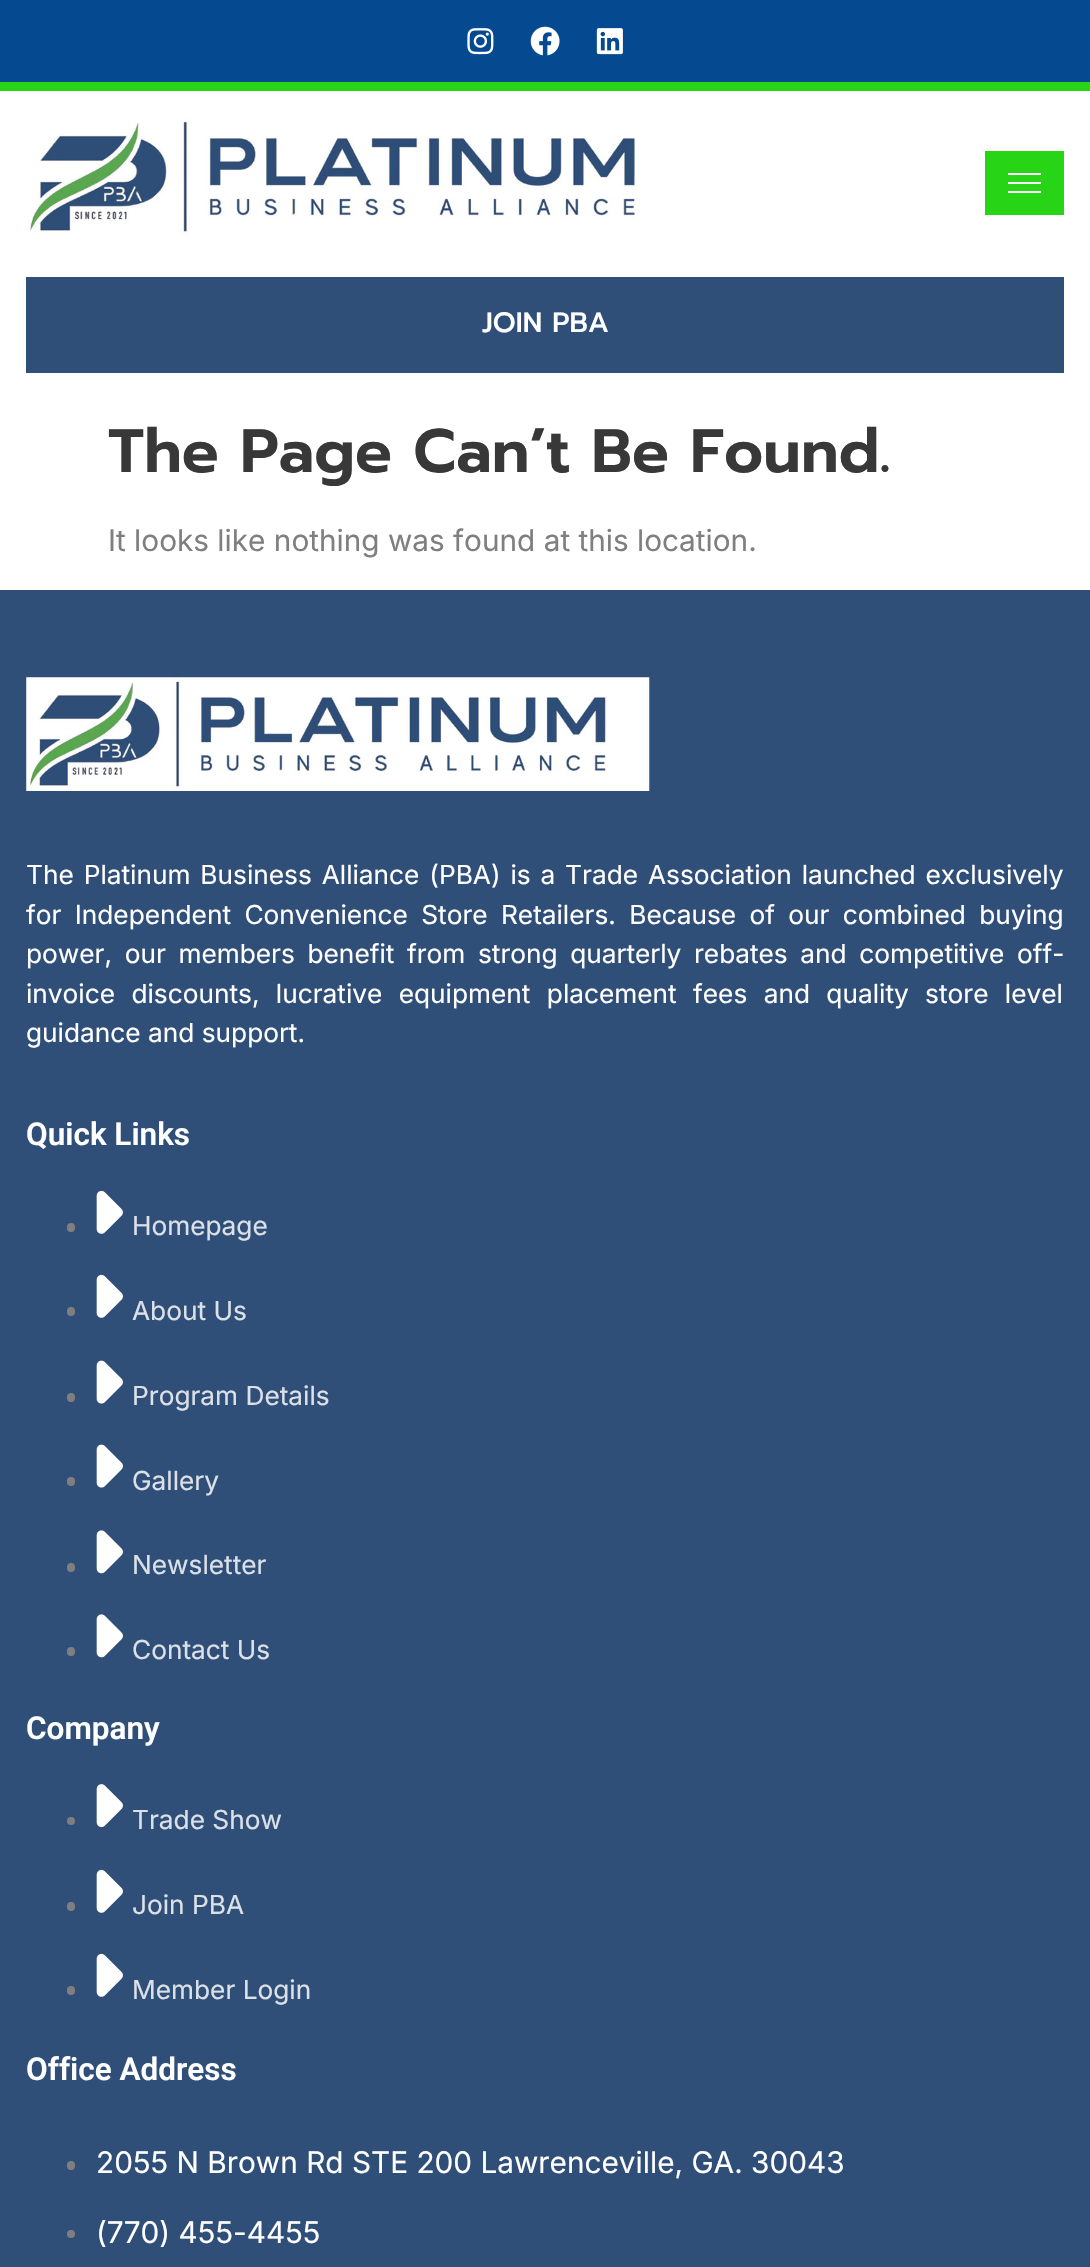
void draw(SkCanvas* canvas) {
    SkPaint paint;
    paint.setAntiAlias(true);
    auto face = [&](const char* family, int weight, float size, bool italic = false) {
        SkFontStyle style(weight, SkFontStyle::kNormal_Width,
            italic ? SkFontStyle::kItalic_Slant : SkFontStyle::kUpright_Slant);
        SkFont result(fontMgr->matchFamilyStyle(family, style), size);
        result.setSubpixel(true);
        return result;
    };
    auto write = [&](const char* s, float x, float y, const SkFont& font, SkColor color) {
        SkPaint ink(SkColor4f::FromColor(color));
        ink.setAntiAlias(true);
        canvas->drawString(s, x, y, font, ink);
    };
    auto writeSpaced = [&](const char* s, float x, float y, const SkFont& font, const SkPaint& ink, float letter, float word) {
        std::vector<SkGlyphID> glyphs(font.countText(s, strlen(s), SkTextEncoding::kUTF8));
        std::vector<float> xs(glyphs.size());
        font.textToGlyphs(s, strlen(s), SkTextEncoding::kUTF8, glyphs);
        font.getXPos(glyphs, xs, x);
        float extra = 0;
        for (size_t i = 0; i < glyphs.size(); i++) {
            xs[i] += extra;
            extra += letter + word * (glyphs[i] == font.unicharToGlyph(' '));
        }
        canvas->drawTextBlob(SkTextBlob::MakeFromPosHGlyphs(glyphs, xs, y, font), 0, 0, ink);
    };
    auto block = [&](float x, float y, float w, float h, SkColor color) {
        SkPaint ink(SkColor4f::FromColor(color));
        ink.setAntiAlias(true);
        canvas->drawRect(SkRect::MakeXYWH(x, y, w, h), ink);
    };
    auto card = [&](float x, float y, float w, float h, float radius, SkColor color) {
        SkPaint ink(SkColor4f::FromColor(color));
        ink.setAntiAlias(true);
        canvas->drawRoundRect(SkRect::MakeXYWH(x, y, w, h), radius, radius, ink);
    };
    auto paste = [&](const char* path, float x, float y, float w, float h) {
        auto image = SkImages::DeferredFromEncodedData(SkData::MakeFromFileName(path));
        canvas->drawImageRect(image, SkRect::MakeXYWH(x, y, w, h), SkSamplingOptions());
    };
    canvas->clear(SK_ColorWHITE);
    block(0, 0, 1090, 82, SkColorSetRGB(5, 74, 145));
    block(0, 82, 1090, 9, SkColorSetRGB(39, 212, 22));
    paste("pic1.png", 467, 28, 27, 27);
    paste("pic2.png", 530, 26, 30, 30);
    paste("pic3.png", 596, 28, 27, 27);
    paste("pic4.png", 28, 118, 609, 118);
    block(985, 151, 79, 64, SkColorSetRGB(39, 212, 22));
    block(1008, 173, 33, 2, SK_ColorWHITE);
    block(1008, 182, 33, 2, SK_ColorWHITE);
    block(1008, 191, 33, 2, SK_ColorWHITE);
    block(26, 277, 1038, 96, SkColorSetRGB(47, 78, 120));
    auto kFont1 = face("Prompt", 500, 28);
    write("JOIN PBA", 482, 332, kFont1, SK_ColorWHITE);
    auto kFont2 = face("Prompt", 600, 61.25f);
    write("The Page Can’t Be Found.", 108, 472, kFont2, SkColorSetRGB(56, 56, 56));
    auto kFont3 = face("Inter", 400, 29.75f);
    write("It looks like nothing was found at this location.", 108, 551, kFont3, SkColorSetRGB(127, 127, 127));
    block(0, 590, 1090, 1677, SkColorSetRGB(47, 78, 120));
    paste("pic5.png", 26, 677, 624, 114);
    auto kFont4 = face("Inter", 400, 26.25f);
    paint.setColor(SK_ColorWHITE);
    writeSpaced("The Platinum Business Alliance (PBA) is a Trade Association launched exclusively", 26, 884, kFont4, paint, 0, 2.5f);
    writeSpaced("for Independent Convenience Store Retailers. Because of our combined buying", 26, 924, kFont4, paint, 0, 6);
    writeSpaced("power, our members benefit from strong quarterly rebates and competitive off-", 26, 963, kFont4, paint, 0, 5.25f);
    writeSpaced("invoice discounts, lucrative equipment placement fees and quality store level", 26, 1003, kFont4, paint, 0, 9);
    write("guidance and support.", 26, 1042, kFont4, SK_ColorWHITE);
    auto kFont5 = face("Roboto", 600, 31.5f);
    write("Quick Links", 26, 1145, kFont5, SK_ColorWHITE);
    card(67, 1223, 8, 9, 4, SkColorSetRGB(127, 127, 127));
    paste("pic6.png", 96, 1190, 27, 44);
    write("Homepage", 132, 1235, kFont4, SkColorSetRGB(220, 225, 232));
    card(67, 1307, 8, 9, 4, SkColorSetRGB(127, 127, 127));
    paste("pic6.png", 96, 1274, 27, 44);
    write("About Us", 132, 1320, kFont4, SkColorSetRGB(220, 225, 232));
    card(67, 1393, 8, 9, 4, SkColorSetRGB(127, 127, 127));
    paste("pic7.png", 96, 1360, 27, 44);
    write("Program Details", 132, 1405, kFont4, SkColorSetRGB(220, 225, 232));
    card(67, 1477, 8, 9, 4, SkColorSetRGB(127, 127, 127));
    paste("pic7.png", 96, 1444, 27, 44);
    write("Gallery", 132, 1490, kFont4, SkColorSetRGB(220, 225, 232));
    card(67, 1563, 8, 9, 4, SkColorSetRGB(127, 127, 127));
    paste("pic8.png", 96, 1530, 27, 44);
    write("Newsletter", 132, 1574, kFont4, SkColorSetRGB(220, 225, 232));
    card(67, 1647, 8, 9, 4, SkColorSetRGB(127, 127, 127));
    paste("pic8.png", 96, 1614, 27, 44);
    write("Contact Us", 132, 1659, kFont4, SkColorSetRGB(220, 225, 232));
    write("Company", 26, 1739, kFont5, SK_ColorWHITE);
    paint.setColor(SkColorSetRGB(127, 127, 127));
    canvas->drawCircle(71, 1821, 4, paint);
    paste("pic9.png", 96, 1784, 27, 44);
    write("Trade Show", 132, 1829, kFont4, SkColorSetRGB(220, 225, 232));
    card(67, 1902, 8, 9, 4, SkColorSetRGB(127, 127, 127));
    paste("pic6.png", 96, 1869, 27, 44);
    write("Join PBA", 132, 1914, kFont4, SkColorSetRGB(220, 225, 232));
    card(67, 1986, 8, 9, 4, SkColorSetRGB(127, 127, 127));
    paste("pic6.png", 96, 1953, 27, 44);
    write("Member Login", 132, 1999, kFont4, SkColorSetRGB(220, 225, 232));
    write("Office Address", 26, 2080, kFont5, SK_ColorWHITE);
    card(67, 2161, 8, 9, 4, SkColorSetRGB(127, 127, 127));
    write("2055 N Brown Rd STE 200 Lawrenceville, GA. 30043", 96, 2173, kFont3, SK_ColorWHITE);
    canvas->drawCircle(71, 2234, 4, paint);
    write("(770) 455-4455", 96, 2243, kFont3, SK_ColorWHITE);
}
